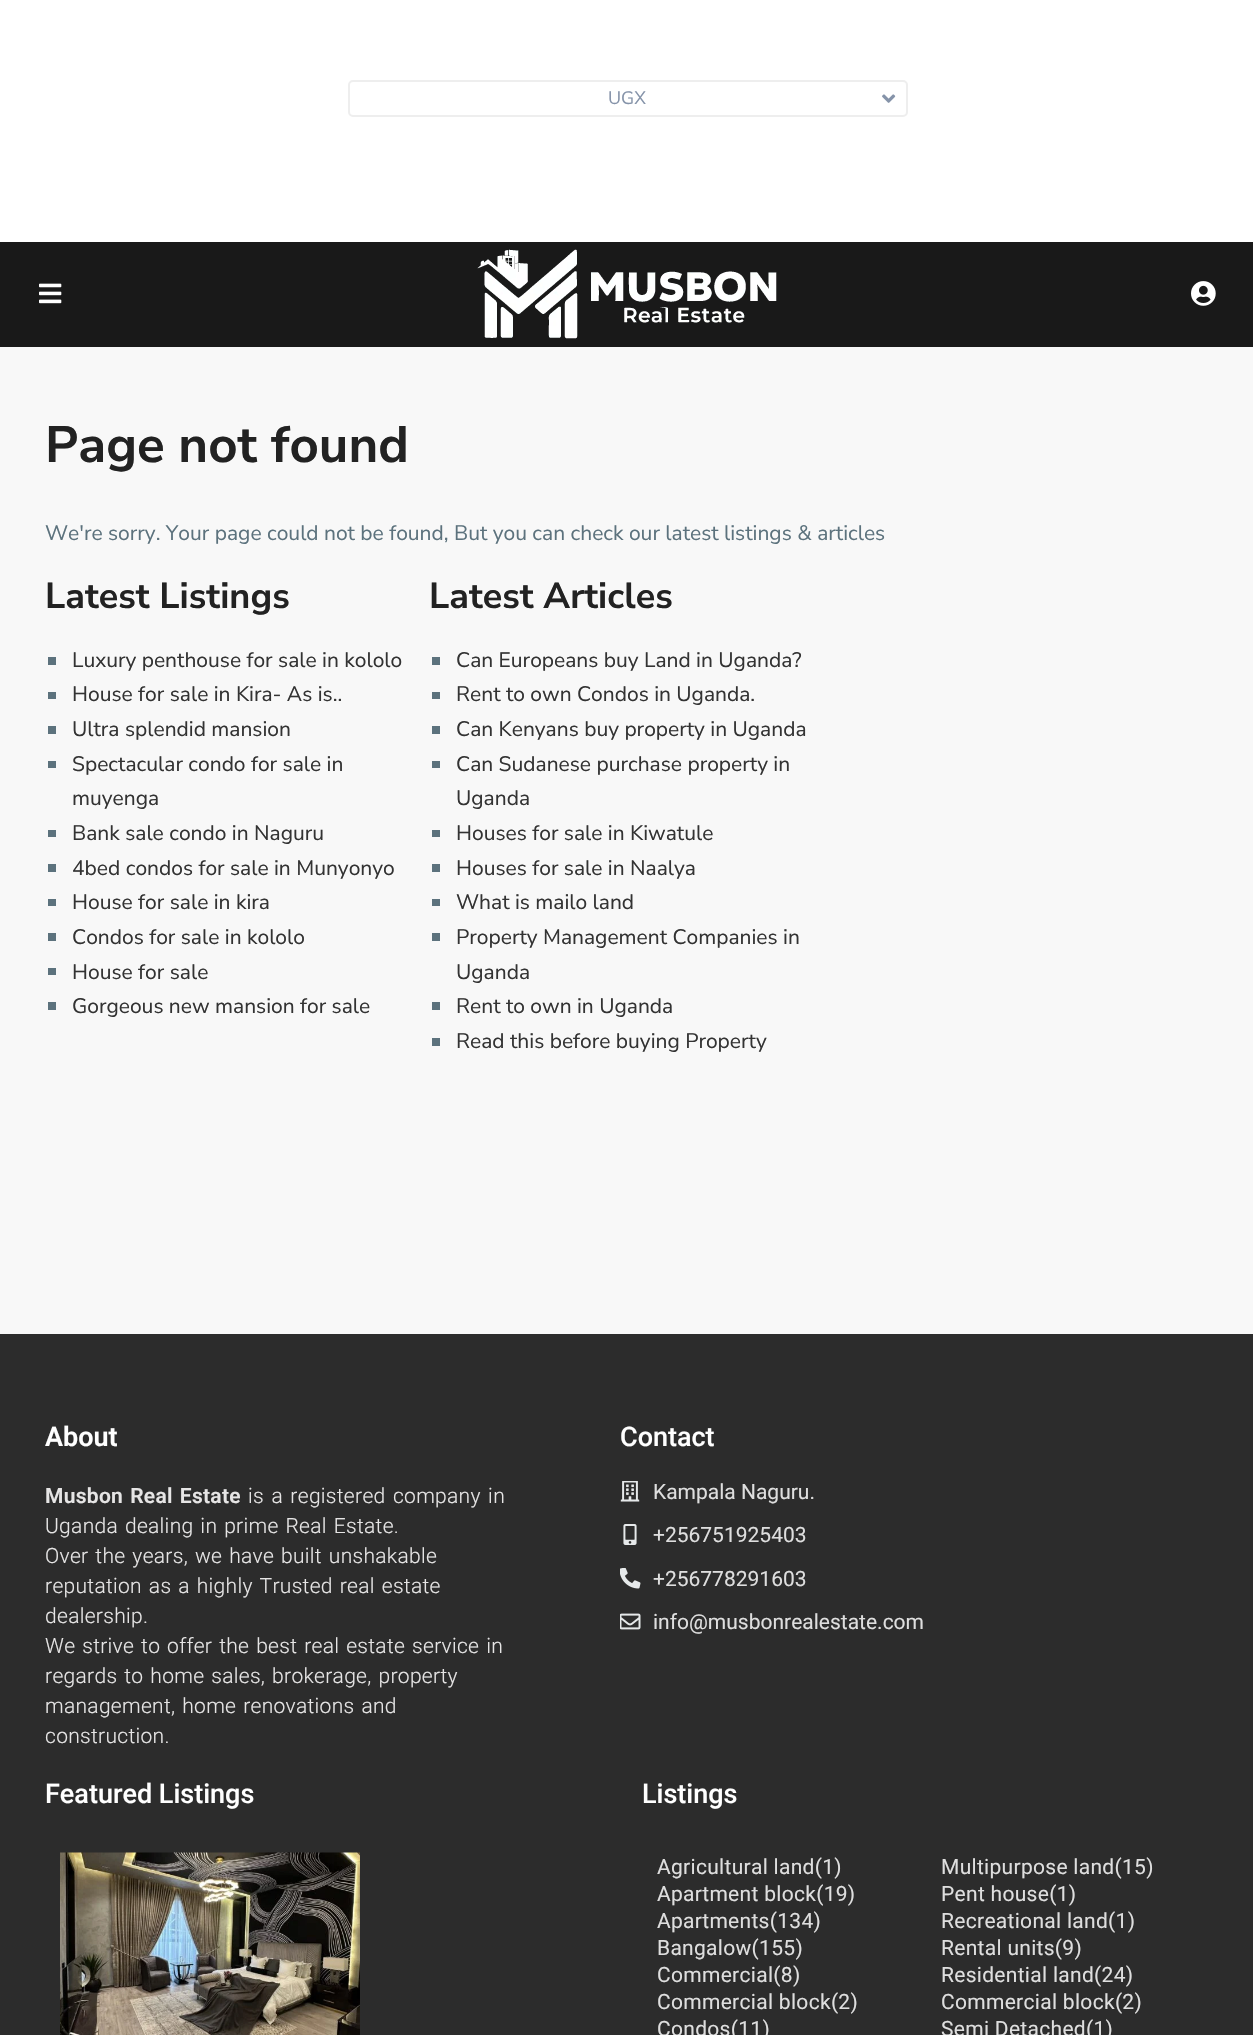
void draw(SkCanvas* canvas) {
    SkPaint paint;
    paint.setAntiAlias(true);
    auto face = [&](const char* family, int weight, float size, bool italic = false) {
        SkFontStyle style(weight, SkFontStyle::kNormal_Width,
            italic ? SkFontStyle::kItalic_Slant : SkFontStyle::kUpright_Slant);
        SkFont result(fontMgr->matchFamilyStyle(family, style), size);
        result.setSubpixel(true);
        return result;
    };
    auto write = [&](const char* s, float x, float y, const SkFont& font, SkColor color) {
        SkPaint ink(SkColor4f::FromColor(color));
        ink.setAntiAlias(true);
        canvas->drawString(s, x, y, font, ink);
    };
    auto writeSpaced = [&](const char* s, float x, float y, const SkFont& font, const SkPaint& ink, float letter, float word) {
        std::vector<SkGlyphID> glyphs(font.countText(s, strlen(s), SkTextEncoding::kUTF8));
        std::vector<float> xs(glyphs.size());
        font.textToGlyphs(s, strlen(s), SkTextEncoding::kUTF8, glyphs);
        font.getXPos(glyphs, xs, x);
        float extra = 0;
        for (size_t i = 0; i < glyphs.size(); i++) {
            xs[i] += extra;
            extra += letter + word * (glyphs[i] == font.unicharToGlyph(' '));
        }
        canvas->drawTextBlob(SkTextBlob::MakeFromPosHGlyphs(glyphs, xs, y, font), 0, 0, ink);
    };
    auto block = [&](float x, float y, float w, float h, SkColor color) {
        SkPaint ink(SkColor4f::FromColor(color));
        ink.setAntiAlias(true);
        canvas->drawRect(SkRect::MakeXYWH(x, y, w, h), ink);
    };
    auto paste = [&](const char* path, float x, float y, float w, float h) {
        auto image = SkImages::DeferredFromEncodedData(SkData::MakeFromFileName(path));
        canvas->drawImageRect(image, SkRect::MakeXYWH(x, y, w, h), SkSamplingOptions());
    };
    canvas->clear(SkColorSetRGB(248, 248, 248));
    block(0, 0, 1253, 242, SK_ColorWHITE);
    paint.setStyle(SkPaint::kStroke_Style);
    paint.setStrokeWidth(2);
    paint.setColor(SkColorSetRGB(238, 238, 238));
    canvas->drawRoundRect(SkRect::MakeXYWH(349, 81, 558, 35), 4, 4, paint);
    auto kFont1 = face("Nunito Sans", 400, 18);
    write("UGX", 608, 104, kFont1, SkColorSetRGB(133, 147, 169));
    paste("pic1.png", 882, 94, 14, 9);
    block(0, 242, 1253, 105, SkColorSetRGB(25, 25, 25));
    paste("pic2.png", 39, 283, 23, 21);
    paste("pic3.png", 477, 249, 300, 90);
    paste("pic4.png", 1191, 281, 25, 25);
    auto kFont2 = face("Nunito Sans", 700, 51);
    write("Page not found", 45, 462, kFont2, SkColorSetRGB(34, 34, 34));
    auto kFont3 = face("Nunito Sans", 400, 21);
    write("We're sorry. Your page could not be found, But you can check our latest listings & articles", 45, 540, kFont3, SkColorSetRGB(92, 114, 125));
    auto kFont4 = face("Nunito Sans", 700, 36);
    write("Latest Listings", 45, 608, kFont4, SkColorSetRGB(34, 34, 34));
    block(48, 657, 8, 8, SkColorSetRGB(92, 114, 125));
    write("Luxury penthouse for sale in kololo", 72, 667, kFont3, SkColorSetRGB(51, 51, 51));
    block(48, 692, 8, 7, SkColorSetRGB(92, 114, 125));
    write("House for sale in Kira- As is..", 72, 701, kFont3, SkColorSetRGB(51, 51, 51));
    block(48, 726, 8, 8, SkColorSetRGB(92, 114, 125));
    write("Ultra splendid mansion", 72, 736, kFont3, SkColorSetRGB(51, 51, 51));
    block(48, 761, 8, 7, SkColorSetRGB(92, 114, 125));
    write("Spectacular condo for sale in", 72, 771, kFont3, SkColorSetRGB(51, 51, 51));
    write("muyenga", 72, 805, kFont3, SkColorSetRGB(51, 51, 51));
    block(48, 830, 8, 7, SkColorSetRGB(92, 114, 125));
    write("Bank sale condo in Naguru", 72, 840, kFont3, SkColorSetRGB(51, 51, 51));
    block(48, 864, 8, 8, SkColorSetRGB(92, 114, 125));
    write("4bed condos for sale in Munyonyo", 72, 875, kFont3, SkColorSetRGB(51, 51, 51));
    block(48, 899, 8, 7, SkColorSetRGB(92, 114, 125));
    write("House for sale in kira", 72, 909, kFont3, SkColorSetRGB(51, 51, 51));
    block(48, 933, 8, 8, SkColorSetRGB(92, 114, 125));
    write("Condos for sale in kololo", 72, 944, kFont3, SkColorSetRGB(51, 51, 51));
    block(48, 968, 8, 7, SkColorSetRGB(92, 114, 125));
    write("House for sale", 72, 979, kFont3, SkColorSetRGB(51, 51, 51));
    block(48, 1002, 8, 8, SkColorSetRGB(92, 114, 125));
    write("Gorgeous new mansion for sale", 72, 1013, kFont3, SkColorSetRGB(51, 51, 51));
    write("Latest Articles", 429, 608, kFont4, SkColorSetRGB(34, 34, 34));
    block(432, 657, 8, 8, SkColorSetRGB(92, 114, 125));
    write("Can Europeans buy Land in Uganda?", 456, 667, kFont3, SkColorSetRGB(51, 51, 51));
    block(432, 692, 8, 7, SkColorSetRGB(92, 114, 125));
    write("Rent to own Condos in Uganda.", 456, 701, kFont3, SkColorSetRGB(51, 51, 51));
    block(432, 726, 8, 8, SkColorSetRGB(92, 114, 125));
    write("Can Kenyans buy property in Uganda", 456, 736, kFont3, SkColorSetRGB(51, 51, 51));
    block(432, 761, 8, 7, SkColorSetRGB(92, 114, 125));
    write("Can Sudanese purchase property in", 456, 771, kFont3, SkColorSetRGB(51, 51, 51));
    write("Uganda", 456, 805, kFont3, SkColorSetRGB(51, 51, 51));
    block(432, 830, 8, 7, SkColorSetRGB(92, 114, 125));
    write("Houses for sale in Kiwatule", 456, 840, kFont3, SkColorSetRGB(51, 51, 51));
    block(432, 864, 8, 8, SkColorSetRGB(92, 114, 125));
    write("Houses for sale in Naalya", 456, 875, kFont3, SkColorSetRGB(51, 51, 51));
    block(432, 899, 8, 7, SkColorSetRGB(92, 114, 125));
    write("What is mailo land", 456, 909, kFont3, SkColorSetRGB(51, 51, 51));
    block(432, 933, 8, 8, SkColorSetRGB(92, 114, 125));
    write("Property Management Companies in", 456, 944, kFont3, SkColorSetRGB(51, 51, 51));
    write("Uganda", 456, 979, kFont3, SkColorSetRGB(51, 51, 51));
    block(432, 1002, 8, 8, SkColorSetRGB(92, 114, 125));
    write("Rent to own in Uganda", 456, 1013, kFont3, SkColorSetRGB(51, 51, 51));
    block(432, 1038, 8, 8, SkColorSetRGB(92, 114, 125));
    write("Read this before buying Property", 456, 1048, kFont3, SkColorSetRGB(51, 51, 51));
    block(0, 1334, 1253, 701, SkColorSetRGB(44, 44, 44));
    auto kFont5 = face("Roboto", 600, 27);
    write("About", 45, 1446, kFont5, SK_ColorWHITE);
    auto kFont6 = face("Roboto", 600, 21);
    paint.setStyle(SkPaint::kFill_Style);
    paint.setColor(SkColorSetRGB(230, 229, 229));
    writeSpaced("Musbon Real Estate", 45, 1503, kFont6, paint, 0.3f, 1.5f);
    auto kFont7 = face("Roboto", 300, 21);
    writeSpaced("is a registered company in", 248, 1503, kFont7, paint, 0.3f, 2);
    writeSpaced("Uganda dealing in prime Real Estate.", 45, 1533, kFont7, paint, 0.3f, 1.5f);
    writeSpaced("Over the years, we have built unshakable", 45, 1563, kFont7, paint, 0.3f, 1.5f);
    writeSpaced("reputation as a highly Trusted real estate", 45, 1593, kFont7, paint, 0.3f, 1.5f);
    writeSpaced("dealership.", 45, 1623, kFont7, paint, 0.3f, 0);
    writeSpaced("We strive to offer the best real estate service in", 45, 1653, kFont7, paint, 0.3f, 1.5f);
    writeSpaced("regards to home sales, brokerage, property", 45, 1683, kFont7, paint, 0.3f, 1.5f);
    writeSpaced("management, home renovations and", 45, 1713, kFont7, paint, 0.3f, 1.5f);
    writeSpaced("construction.", 45, 1743, kFont7, paint, 0.3f, 0);
    auto kFont8 = face("Roboto", 500, 27);
    write("Contact", 620, 1446, kFont8, SK_ColorWHITE);
    paste("pic5.png", 620, 1481, 20, 21);
    auto kFont9 = face("Roboto", 400, 21);
    write("Kampala Naguru.", 653, 1499, kFont9, SkColorSetRGB(222, 222, 222));
    paste("pic6.png", 623, 1524, 14, 21);
    write("+256751925403", 653, 1542, kFont9, SkColorSetRGB(222, 222, 222));
    paste("pic7.png", 620, 1568, 21, 21);
    write("+256778291603", 653, 1586, kFont9, SkColorSetRGB(222, 222, 222));
    paste("pic8.png", 620, 1613, 21, 17);
    write("info@musbonrealestate.com", 653, 1629, kFont9, SkColorSetRGB(222, 222, 222));
    write("Featured Listings", 45, 1803, kFont8, SK_ColorWHITE);
    paste("pic9.png", 60, 1852, 300, 183);
    write("Listings", 642, 1803, kFont8, SK_ColorWHITE);
    paint.setColor(SkColorSetRGB(222, 222, 222));
    writeSpaced("Agricultural land(1)", 657, 1874, kFont9, paint, 0.3f, 0);
    writeSpaced("Apartment block(19)", 657, 1901, kFont9, paint, 0.3f, 0);
    writeSpaced("Apartments(134)", 657, 1928, kFont9, paint, 0.3f, 0);
    writeSpaced("Bangalow(155)", 657, 1955, kFont9, paint, 0.3f, 0);
    writeSpaced("Commercial(8)", 657, 1982, kFont9, paint, 0.3f, 0);
    writeSpaced("Commercial block(2)", 657, 2009, kFont9, paint, 0.3f, 0);
    writeSpaced("Condos(11)", 657, 2036, kFont9, paint, 0.3f, 0);
    writeSpaced("Multipurpose land(15)", 941, 1874, kFont9, paint, 0.3f, 0);
    writeSpaced("Pent house(1)", 941, 1901, kFont9, paint, 0.3f, 0);
    writeSpaced("Recreational land(1)", 941, 1928, kFont9, paint, 0.3f, 0);
    writeSpaced("Rental units(9)", 941, 1955, kFont9, paint, 0.3f, 0);
    writeSpaced("Residential land(24)", 941, 1982, kFont9, paint, 0.3f, 0);
    writeSpaced("Commercial block(2)", 941, 2009, kFont9, paint, 0.3f, 0);
    writeSpaced("Semi Detached(1)", 941, 2036, kFont9, paint, 0.3f, 0);
}
